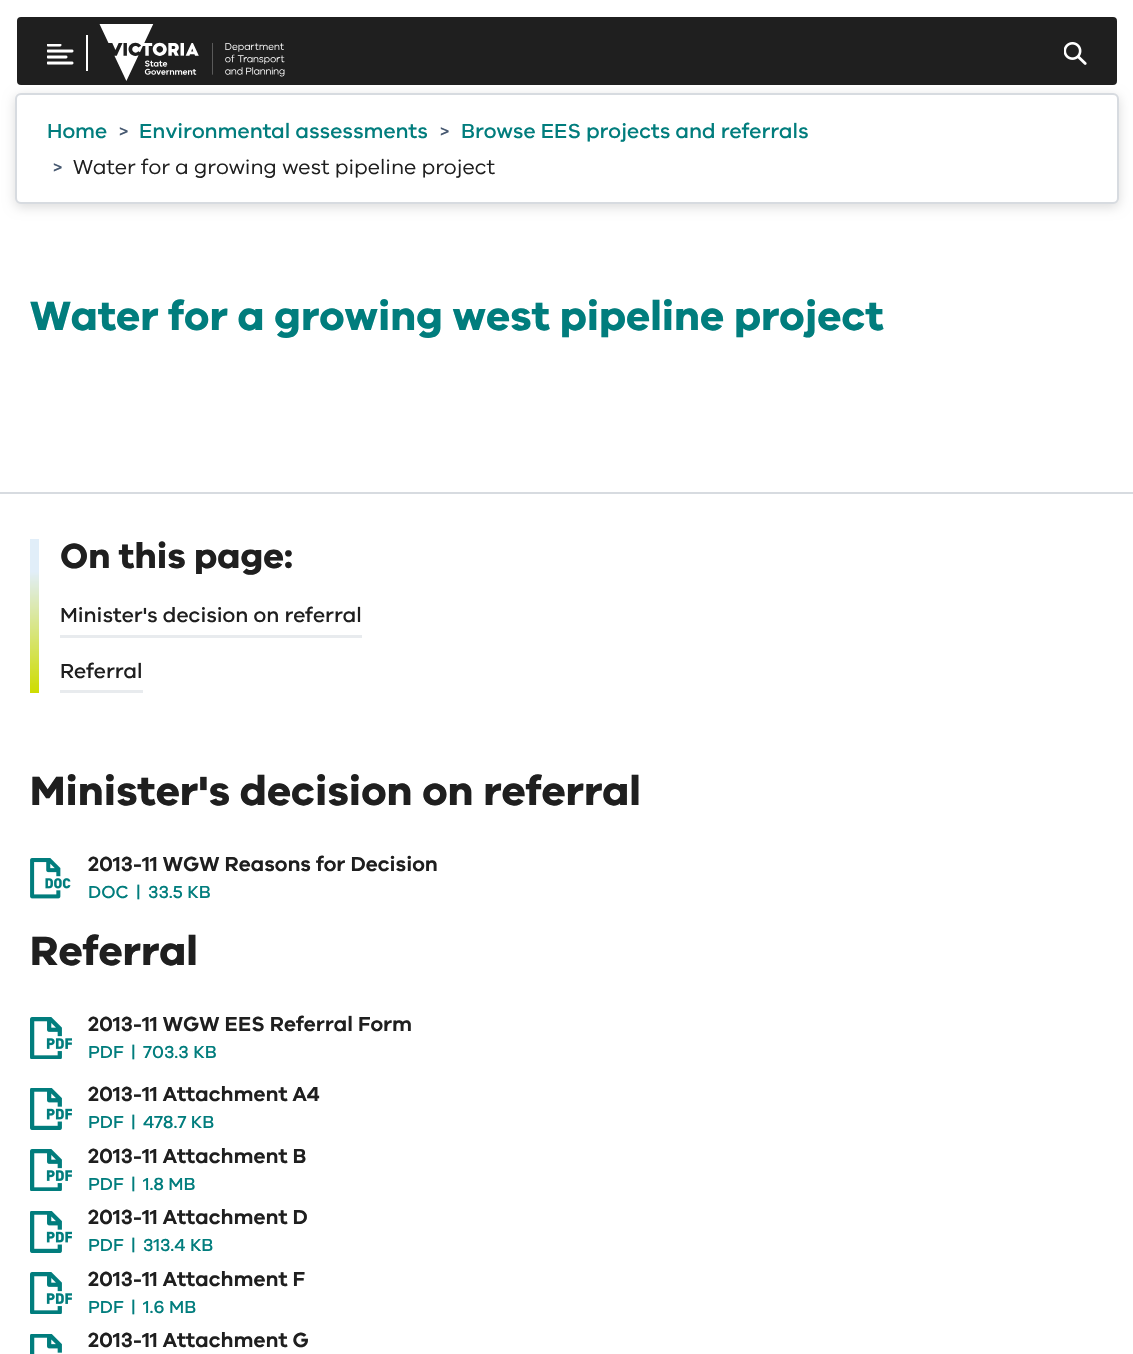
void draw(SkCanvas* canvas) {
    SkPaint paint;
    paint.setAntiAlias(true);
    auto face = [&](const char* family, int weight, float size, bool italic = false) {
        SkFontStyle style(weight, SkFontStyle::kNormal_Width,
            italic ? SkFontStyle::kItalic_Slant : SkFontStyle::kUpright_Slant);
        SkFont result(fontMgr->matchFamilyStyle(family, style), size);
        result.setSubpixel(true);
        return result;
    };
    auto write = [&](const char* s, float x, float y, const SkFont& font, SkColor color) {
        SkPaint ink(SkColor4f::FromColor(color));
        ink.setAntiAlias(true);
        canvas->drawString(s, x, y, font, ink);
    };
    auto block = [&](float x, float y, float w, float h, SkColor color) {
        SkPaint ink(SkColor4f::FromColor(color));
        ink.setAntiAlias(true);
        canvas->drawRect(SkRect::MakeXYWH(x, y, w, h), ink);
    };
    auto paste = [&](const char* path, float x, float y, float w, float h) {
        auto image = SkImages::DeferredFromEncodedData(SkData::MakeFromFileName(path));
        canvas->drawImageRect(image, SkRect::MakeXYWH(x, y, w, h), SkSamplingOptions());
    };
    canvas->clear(SK_ColorWHITE);
    paint.setColor(SkColorSetARGB(36, 0, 0, 0));
    paint.setMaskFilter(SkMaskFilter::MakeBlur(kNormal_SkBlurStyle, 6));
    canvas->drawRoundRect(SkRect::MakeXYWH(15, 96, 1104, 111), 6, 6, paint);
    paint.setMaskFilter(nullptr);
    paint.setColor(SkColorSetRGB(31, 31, 31));
    canvas->drawRoundRect(SkRect::MakeXYWH(16, 16, 1102, 70), 5, 5, paint);
    paint.setStyle(SkPaint::kStroke_Style);
    paint.setStrokeWidth(2);
    paint.setColor(SK_ColorWHITE);
    canvas->drawRoundRect(SkRect::MakeXYWH(16, 16, 1102, 70), 5, 5, paint);
    block(86, 35, 2, 36, SK_ColorWHITE);
    paste("pic1.png", 47, 44, 27, 21);
    paste("pic2.png", 99, 24, 186, 57);
    paste("pic3.png", 1064, 42, 23, 23);
    paint.setStyle(SkPaint::kFill_Style);
    canvas->drawRoundRect(SkRect::MakeXYWH(16, 94, 1102, 109), 5, 5, paint);
    paint.setStyle(SkPaint::kStroke_Style);
    paint.setColor(SkColorSetRGB(215, 219, 224));
    canvas->drawRoundRect(SkRect::MakeXYWH(16, 94, 1102, 109), 5, 5, paint);
    auto kFont1 = face("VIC", 500, 21);
    write("Home", 47, 138, kFont1, SkColorSetRGB(1, 125, 125));
    auto kFont2 = face("VIC", 400, 21);
    write(">", 119, 138, kFont2, SkColorSetRGB(70, 88, 112));
    write("Environmental assessments", 139, 138, kFont1, SkColorSetRGB(1, 125, 125));
    write(">", 440, 138, kFont2, SkColorSetRGB(70, 88, 112));
    write("Browse EES projects and referrals", 461, 138, kFont1, SkColorSetRGB(1, 125, 125));
    write(">", 53, 174, kFont2, SkColorSetRGB(70, 88, 112));
    write("Water for a growing west pipeline project", 73, 174, kFont2, SkColorSetRGB(31, 31, 31));
    block(0, 492, 1133, 2, SkColorSetRGB(215, 219, 224));
    auto kFont3 = face("VIC", 700, 42);
    write("Water for a growing west pipeline project", 30, 330, kFont3, SkColorSetRGB(1, 125, 125));
    paint.setStyle(SkPaint::kFill_Style);
    {
        const SkColor colors[] = {SkColorSetRGB(225, 238, 249), SkColorSetRGB(206, 220, 0)};
        const float stops[] = {0.21f, 1};
        const SkPoint ends[] = {{34, 539}, {35, 693}};
        paint.setShader(SkGradientShader::MakeLinear(ends, colors, stops, 2, SkTileMode::kClamp));
        paint.setAlpha(255);
    }
    canvas->drawRect(SkRect::MakeXYWH(30, 539, 9, 154), paint);
    auto kFont4 = face("VIC", 700, 36);
    write("On this page:", 60, 568, kFont4, SkColorSetRGB(31, 31, 31));
    block(60, 635, 302, 3, SkColorSetRGB(232, 235, 238));
    write("Minister's decision on referral", 60, 622, kFont1, SkColorSetRGB(31, 31, 31));
    block(60, 690, 83, 3, SkColorSetRGB(232, 235, 238));
    write("Referral", 60, 678, kFont1, SkColorSetRGB(31, 31, 31));
    write("Minister's decision on referral", 30, 805, kFont3, SkColorSetRGB(31, 31, 31));
    paste("pic4.png", 30, 858, 41, 41);
    auto kFont5 = face("VIC", 600, 21);
    write("2013-11 WGW Reasons for Decision", 88, 871, kFont5, SkColorSetRGB(31, 31, 31));
    auto kFont6 = face("VIC", 500, 18);
    write("DOC", 88, 898, kFont6, SkColorSetRGB(1, 125, 125));
    write("|", 136, 898, kFont6, SkColorSetRGB(1, 125, 125));
    write("33.5 KB", 148, 898, kFont6, SkColorSetRGB(1, 125, 125));
    write("Referral", 30, 965, kFont3, SkColorSetRGB(31, 31, 31));
    paste("pic5.png", 30, 1017, 42, 42);
    write("2013-11 WGW EES Referral Form", 88, 1031, kFont5, SkColorSetRGB(31, 31, 31));
    write("PDF", 88, 1058, kFont6, SkColorSetRGB(1, 125, 125));
    write("|", 131, 1058, kFont6, SkColorSetRGB(1, 125, 125));
    write("703.3 KB", 143, 1058, kFont6, SkColorSetRGB(1, 125, 125));
    paste("pic6.png", 30, 1088, 42, 42);
    write("2013-11 Attachment A4", 88, 1101, kFont5, SkColorSetRGB(31, 31, 31));
    write("PDF", 88, 1128, kFont6, SkColorSetRGB(1, 125, 125));
    write("|", 131, 1128, kFont6, SkColorSetRGB(1, 125, 125));
    write("478.7 KB", 143, 1128, kFont6, SkColorSetRGB(1, 125, 125));
    paste("pic5.png", 30, 1149, 42, 42);
    write("2013-11 Attachment B", 88, 1163, kFont5, SkColorSetRGB(31, 31, 31));
    write("PDF", 88, 1190, kFont6, SkColorSetRGB(1, 125, 125));
    write("|", 131, 1190, kFont6, SkColorSetRGB(1, 125, 125));
    write("1.8 MB", 143, 1190, kFont6, SkColorSetRGB(1, 125, 125));
    paste("pic6.png", 30, 1211, 42, 42);
    write("2013-11 Attachment D", 88, 1224, kFont5, SkColorSetRGB(31, 31, 31));
    write("PDF", 88, 1251, kFont6, SkColorSetRGB(1, 125, 125));
    write("|", 131, 1251, kFont6, SkColorSetRGB(1, 125, 125));
    write("313.4 KB", 143, 1251, kFont6, SkColorSetRGB(1, 125, 125));
    paste("pic5.png", 30, 1272, 42, 42);
    write("2013-11 Attachment F", 88, 1286, kFont5, SkColorSetRGB(31, 31, 31));
    write("PDF", 88, 1313, kFont6, SkColorSetRGB(1, 125, 125));
    write("|", 131, 1313, kFont6, SkColorSetRGB(1, 125, 125));
    write("1.6 MB", 143, 1313, kFont6, SkColorSetRGB(1, 125, 125));
    paste("pic7.png", 30, 1334, 32, 20);
    write("2013-11 Attachment G", 88, 1347, kFont5, SkColorSetRGB(31, 31, 31));
}
